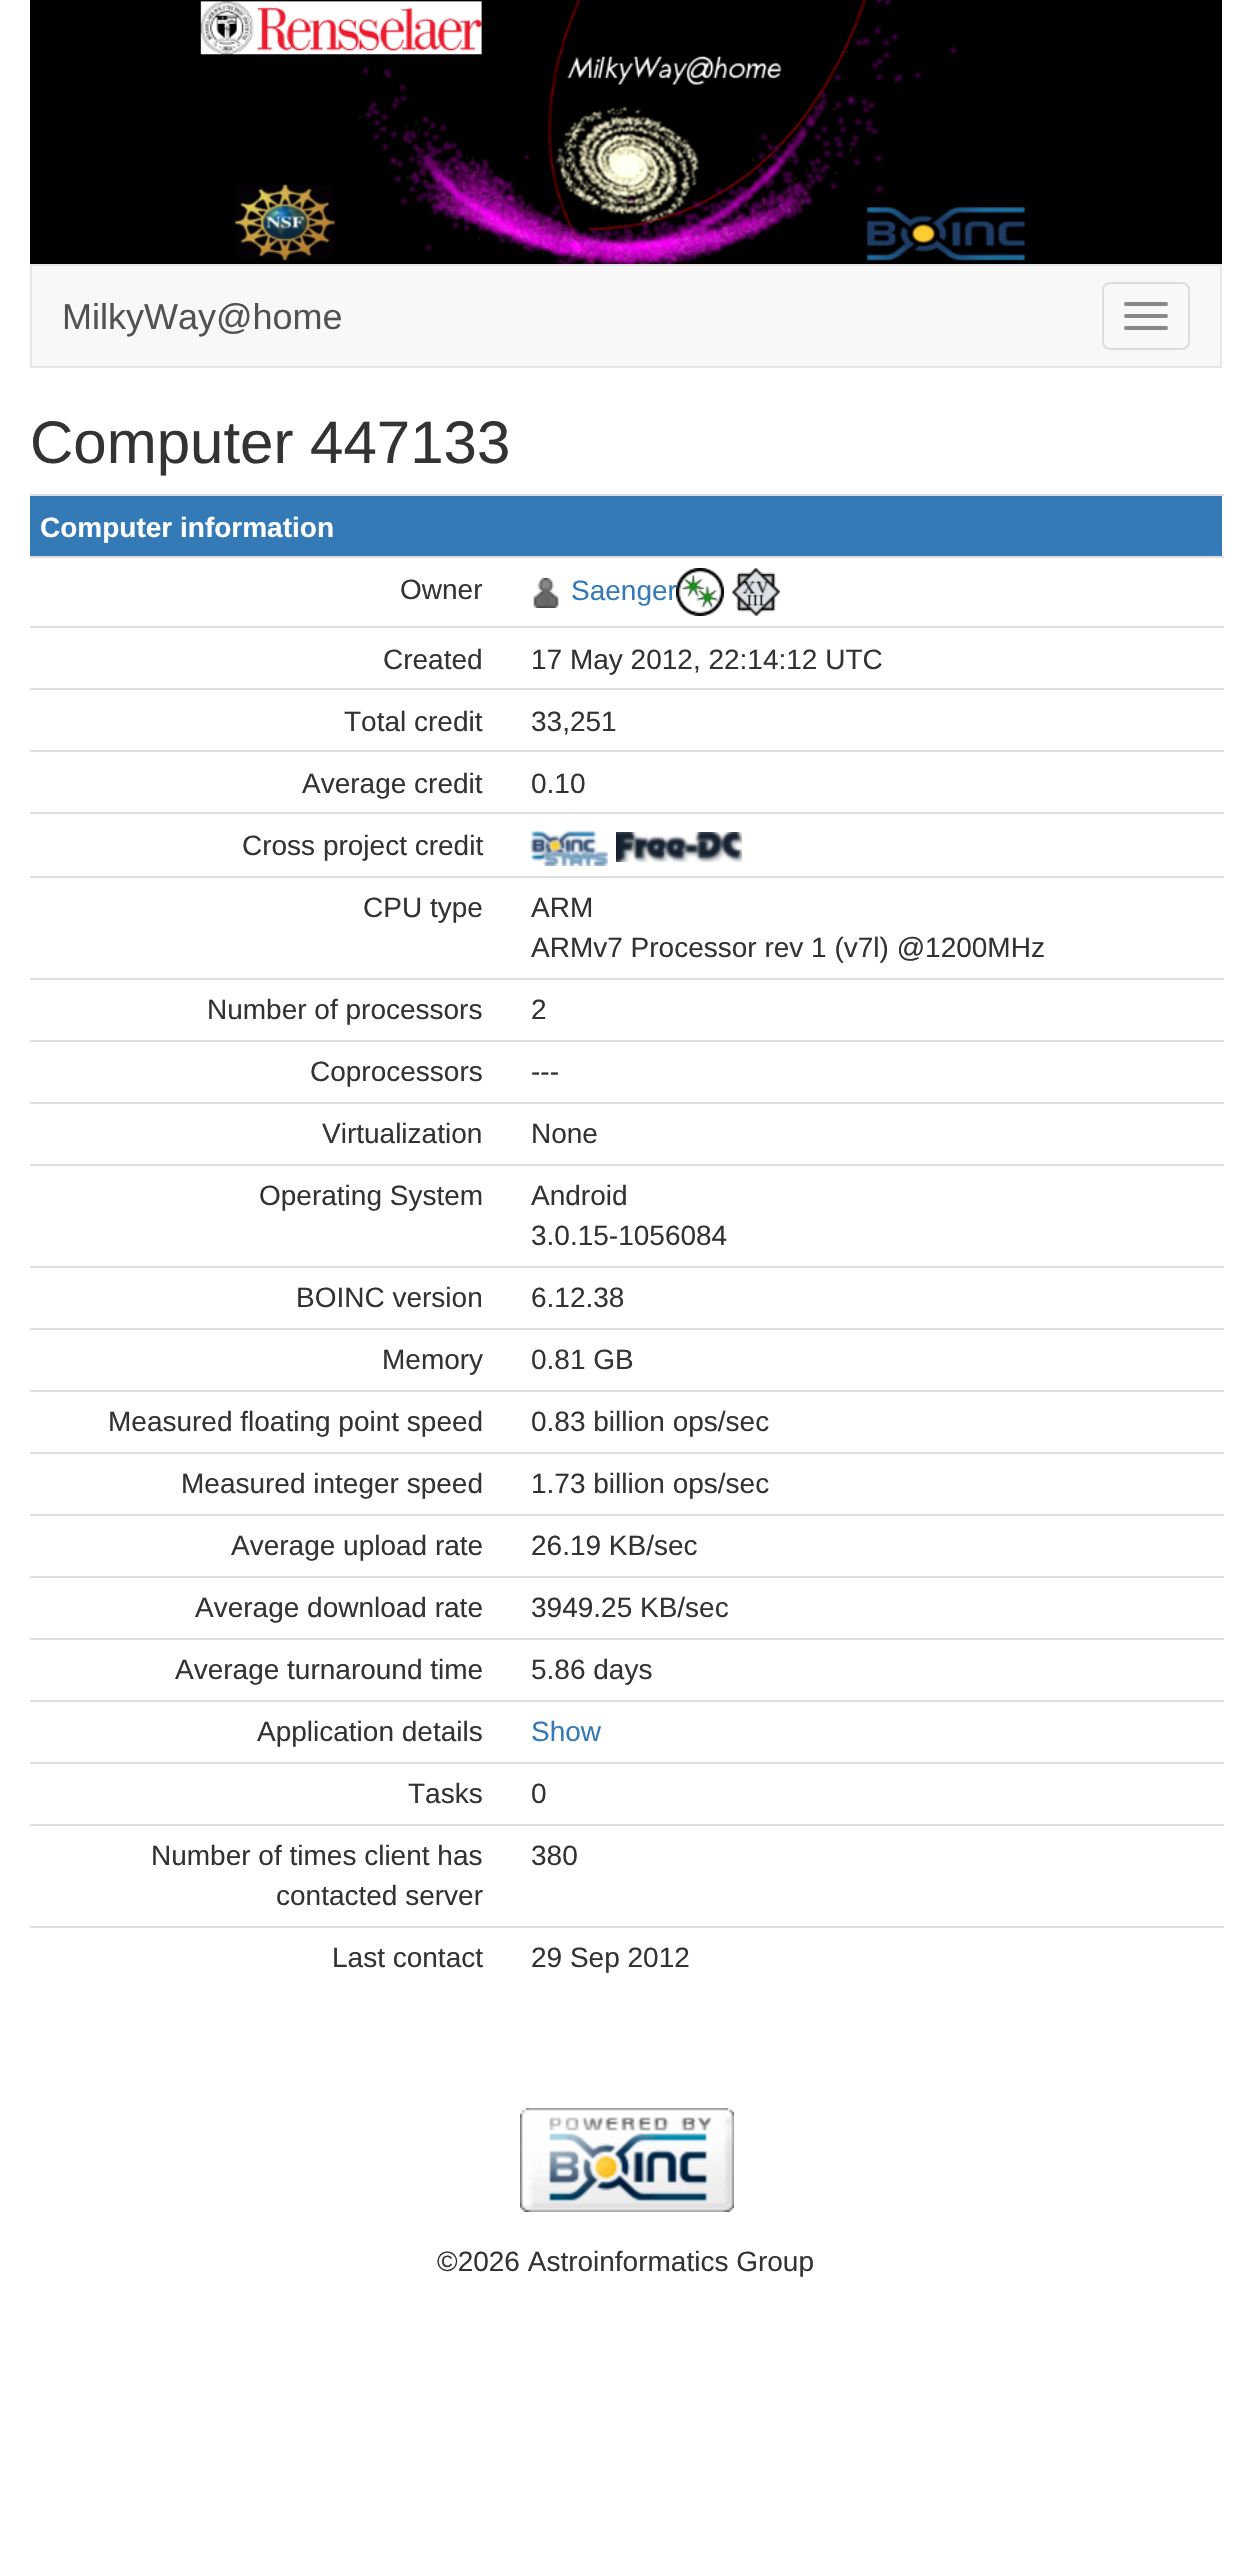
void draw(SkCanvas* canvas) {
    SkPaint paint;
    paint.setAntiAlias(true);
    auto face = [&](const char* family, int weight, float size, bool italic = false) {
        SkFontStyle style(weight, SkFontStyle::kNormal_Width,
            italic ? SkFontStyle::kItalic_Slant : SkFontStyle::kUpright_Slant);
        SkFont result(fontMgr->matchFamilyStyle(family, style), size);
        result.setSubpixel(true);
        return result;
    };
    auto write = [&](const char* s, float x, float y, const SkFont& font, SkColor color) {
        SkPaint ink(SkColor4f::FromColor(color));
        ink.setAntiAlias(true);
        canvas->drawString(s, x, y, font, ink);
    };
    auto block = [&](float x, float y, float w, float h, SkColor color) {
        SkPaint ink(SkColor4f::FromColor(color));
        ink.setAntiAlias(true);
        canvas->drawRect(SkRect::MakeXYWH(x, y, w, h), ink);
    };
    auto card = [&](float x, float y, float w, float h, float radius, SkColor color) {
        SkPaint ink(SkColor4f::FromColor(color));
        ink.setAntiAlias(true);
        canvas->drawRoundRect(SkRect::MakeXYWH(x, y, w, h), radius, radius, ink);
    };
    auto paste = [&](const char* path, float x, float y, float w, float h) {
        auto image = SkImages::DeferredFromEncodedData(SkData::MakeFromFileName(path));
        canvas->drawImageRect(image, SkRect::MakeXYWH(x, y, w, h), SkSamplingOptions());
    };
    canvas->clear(SK_ColorWHITE);
    paste("pic1.png", 30, 0, 1192, 264);
    paint.setColor(SkColorSetRGB(248, 248, 248));
    canvas->drawRect(SkRect::MakeXYWH(31, 265, 1190, 102), paint);
    paint.setStyle(SkPaint::kStroke_Style);
    paint.setStrokeWidth(2);
    paint.setColor(SkColorSetRGB(231, 231, 231));
    canvas->drawRect(SkRect::MakeXYWH(31, 265, 1190, 102), paint);
    auto kFont1 = face("Liberation Sans", 400, 36);
    write("MilkyWay@home", 62, 329, kFont1, SkColorSetRGB(82, 82, 82));
    paint.setColor(SkColorSetRGB(221, 221, 221));
    canvas->drawRoundRect(SkRect::MakeXYWH(1103, 283, 86, 66), 7, 7, paint);
    card(1124, 302, 44, 4, 2, SkColorSetRGB(136, 136, 136));
    card(1124, 314, 44, 4, 2, SkColorSetRGB(136, 136, 136));
    card(1124, 326, 44, 4, 2, SkColorSetRGB(136, 136, 136));
    auto kFont2 = face("Liberation Sans", 400, 60);
    write("Computer 447133", 30, 463, kFont2, SkColorSetRGB(51, 51, 51));
    block(30, 496, 1192, 60, SkColorSetRGB(51, 122, 183));
    block(30, 494, 1194, 2, SkColorSetRGB(221, 221, 221));
    auto kFont3 = face("Liberation Sans", 700, 28);
    write("Computer information", 40, 537, kFont3, SK_ColorWHITE);
    auto kFont4 = face("Liberation Sans", 400, 28);
    write("Owner", 400, 599, kFont4, SkColorSetRGB(51, 51, 51));
    block(30, 556, 1194, 2, SkColorSetRGB(221, 221, 221));
    paste("pic2.png", 533, 578, 26, 30);
    write("Saenger", 571, 600, kFont4, SkColorSetRGB(51, 122, 183));
    paste("pic3.png", 676, 568, 48, 48);
    paste("pic4.png", 732, 568, 48, 48);
    write("Created", 383, 669, kFont4, SkColorSetRGB(51, 51, 51));
    block(30, 626, 1194, 2, SkColorSetRGB(221, 221, 221));
    write("17 May 2012, 22:14:12 UTC", 531, 669, kFont4, SkColorSetRGB(51, 51, 51));
    write("Total credit", 344, 731, kFont4, SkColorSetRGB(51, 51, 51));
    block(30, 688, 1194, 2, SkColorSetRGB(221, 221, 221));
    write("33,251", 531, 731, kFont4, SkColorSetRGB(51, 51, 51));
    write("Average credit", 302, 793, kFont4, SkColorSetRGB(51, 51, 51));
    block(30, 750, 1194, 2, SkColorSetRGB(221, 221, 221));
    write("0.10", 531, 793, kFont4, SkColorSetRGB(51, 51, 51));
    block(30, 812, 1194, 2, SkColorSetRGB(221, 221, 221));
    paste("pic5.png", 530, 830, 78, 36);
    paste("pic6.png", 616, 832, 126, 30);
    write("Cross project credit", 242, 855, kFont4, SkColorSetRGB(51, 51, 51));
    write("CPU type", 363, 917, kFont4, SkColorSetRGB(51, 51, 51));
    block(30, 876, 1194, 2, SkColorSetRGB(221, 221, 221));
    write("ARM", 531, 917, kFont4, SkColorSetRGB(51, 51, 51));
    write("ARMv7 Processor rev 1 (v7l) @1200MHz", 531, 957, kFont4, SkColorSetRGB(51, 51, 51));
    write("Number of processors", 207, 1019, kFont4, SkColorSetRGB(51, 51, 51));
    block(30, 978, 1194, 2, SkColorSetRGB(221, 221, 221));
    write("2", 531, 1019, kFont4, SkColorSetRGB(51, 51, 51));
    write("Coprocessors", 310, 1081, kFont4, SkColorSetRGB(51, 51, 51));
    block(30, 1040, 1194, 2, SkColorSetRGB(221, 221, 221));
    write("---", 531, 1081, kFont4, SkColorSetRGB(51, 51, 51));
    write("Virtualization", 322, 1143, kFont4, SkColorSetRGB(51, 51, 51));
    block(30, 1102, 1194, 2, SkColorSetRGB(221, 221, 221));
    write("None", 531, 1143, kFont4, SkColorSetRGB(51, 51, 51));
    write("Operating System", 259, 1205, kFont4, SkColorSetRGB(51, 51, 51));
    block(30, 1164, 1194, 2, SkColorSetRGB(221, 221, 221));
    write("Android", 531, 1205, kFont4, SkColorSetRGB(51, 51, 51));
    write("3.0.15-1056084", 531, 1245, kFont4, SkColorSetRGB(51, 51, 51));
    write("BOINC version", 296, 1307, kFont4, SkColorSetRGB(51, 51, 51));
    block(30, 1266, 1194, 2, SkColorSetRGB(221, 221, 221));
    write("6.12.38", 531, 1307, kFont4, SkColorSetRGB(51, 51, 51));
    write("Memory", 382, 1369, kFont4, SkColorSetRGB(51, 51, 51));
    block(30, 1328, 1194, 2, SkColorSetRGB(221, 221, 221));
    write("0.81 GB", 531, 1369, kFont4, SkColorSetRGB(51, 51, 51));
    write("Measured floating point speed", 108, 1431, kFont4, SkColorSetRGB(51, 51, 51));
    block(30, 1390, 1194, 2, SkColorSetRGB(221, 221, 221));
    write("0.83 billion ops/sec", 531, 1431, kFont4, SkColorSetRGB(51, 51, 51));
    write("Measured integer speed", 181, 1493, kFont4, SkColorSetRGB(51, 51, 51));
    block(30, 1452, 1194, 2, SkColorSetRGB(221, 221, 221));
    write("1.73 billion ops/sec", 531, 1493, kFont4, SkColorSetRGB(51, 51, 51));
    write("Average upload rate", 231, 1555, kFont4, SkColorSetRGB(51, 51, 51));
    block(30, 1514, 1194, 2, SkColorSetRGB(221, 221, 221));
    write("26.19 KB/sec", 531, 1555, kFont4, SkColorSetRGB(51, 51, 51));
    write("Average download rate", 195, 1617, kFont4, SkColorSetRGB(51, 51, 51));
    block(30, 1576, 1194, 2, SkColorSetRGB(221, 221, 221));
    write("3949.25 KB/sec", 531, 1617, kFont4, SkColorSetRGB(51, 51, 51));
    write("Average turnaround time", 175, 1679, kFont4, SkColorSetRGB(51, 51, 51));
    block(30, 1638, 1194, 2, SkColorSetRGB(221, 221, 221));
    write("5.86 days", 531, 1679, kFont4, SkColorSetRGB(51, 51, 51));
    write("Application details", 257, 1741, kFont4, SkColorSetRGB(51, 51, 51));
    block(30, 1700, 1194, 2, SkColorSetRGB(221, 221, 221));
    write("Show", 531, 1741, kFont4, SkColorSetRGB(51, 122, 183));
    write("Tasks", 408, 1803, kFont4, SkColorSetRGB(51, 51, 51));
    block(30, 1762, 1194, 2, SkColorSetRGB(221, 221, 221));
    write("0", 531, 1803, kFont4, SkColorSetRGB(51, 51, 51));
    write("Number of times client has", 151, 1865, kFont4, SkColorSetRGB(51, 51, 51));
    write("contacted server", 276, 1905, kFont4, SkColorSetRGB(51, 51, 51));
    block(30, 1824, 1194, 2, SkColorSetRGB(221, 221, 221));
    write("380", 531, 1865, kFont4, SkColorSetRGB(51, 51, 51));
    write("Last contact", 332, 1967, kFont4, SkColorSetRGB(51, 51, 51));
    block(30, 1926, 1194, 2, SkColorSetRGB(221, 221, 221));
    write("29 Sep 2012", 531, 1967, kFont4, SkColorSetRGB(51, 51, 51));
    paste("pic7.png", 520, 2108, 214, 104);
    write("©2026 Astroinformatics Group", 437, 2271, kFont4, SkColorSetRGB(51, 51, 51));
}
